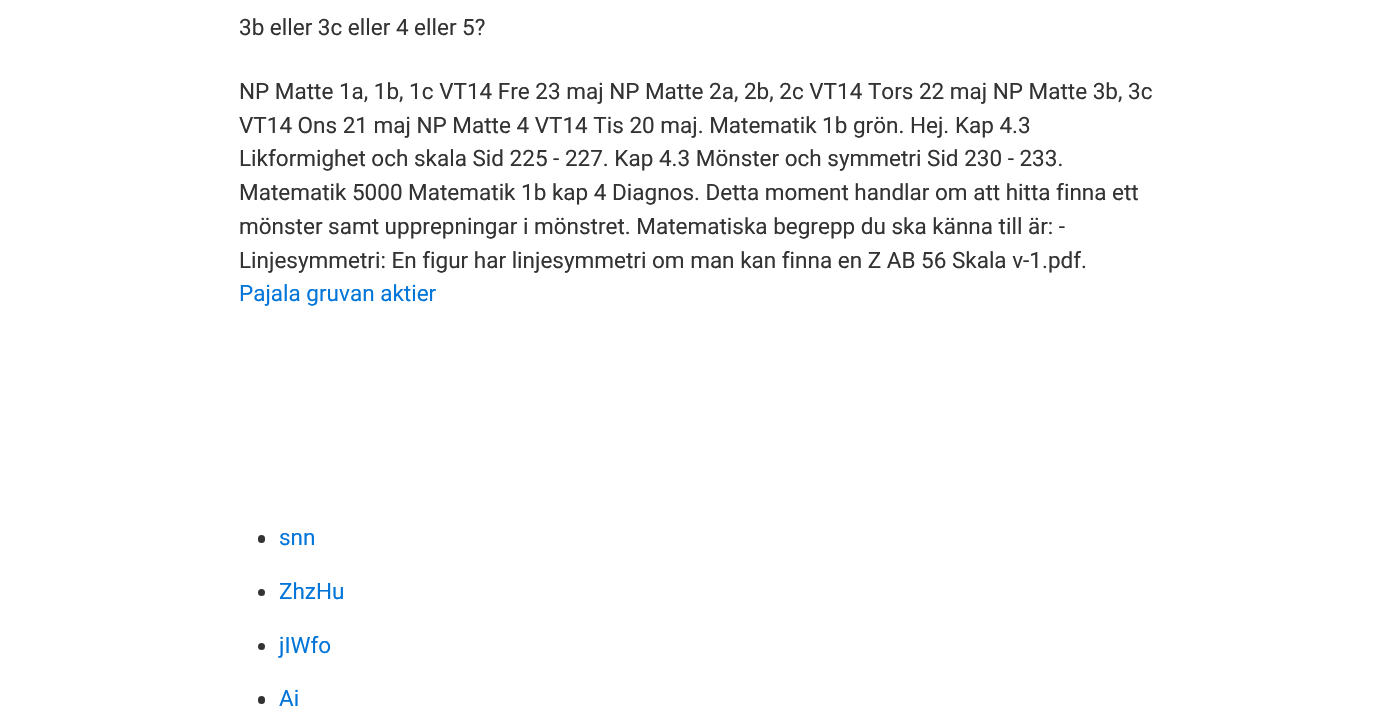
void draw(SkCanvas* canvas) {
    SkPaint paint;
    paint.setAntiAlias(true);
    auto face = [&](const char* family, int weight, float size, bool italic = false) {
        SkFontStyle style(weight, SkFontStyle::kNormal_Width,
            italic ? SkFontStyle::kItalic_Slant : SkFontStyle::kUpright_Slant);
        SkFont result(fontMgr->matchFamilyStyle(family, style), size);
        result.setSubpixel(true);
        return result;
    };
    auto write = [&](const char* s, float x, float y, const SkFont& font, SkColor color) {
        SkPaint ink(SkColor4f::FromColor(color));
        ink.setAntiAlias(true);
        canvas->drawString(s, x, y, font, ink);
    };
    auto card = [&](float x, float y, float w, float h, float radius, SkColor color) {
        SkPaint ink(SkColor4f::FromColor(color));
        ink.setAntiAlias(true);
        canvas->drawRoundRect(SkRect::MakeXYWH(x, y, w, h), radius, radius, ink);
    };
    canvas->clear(SK_ColorWHITE);
    auto kFont1 = face("Roboto", 400, 22.5f);
    write("3b eller 3c eller 4 eller 5?", 239, 35, kFont1, SkColorSetRGB(51, 51, 51));
    write("NP Matte 1a, 1b, 1c VT14 Fre 23 maj NP Matte 2a, 2b, 2c VT14 Tors 22 maj NP Matte 3b, 3c", 239, 99, kFont1, SkColorSetRGB(51, 51, 51));
    write("VT14 Ons 21 maj NP Matte 4 VT14 Tis 20 maj. Matematik 1b grön. Hej. Kap 4.3", 239, 133, kFont1, SkColorSetRGB(51, 51, 51));
    write("Likformighet och skala Sid 225 - 227. Kap 4.3 Mönster och symmetri Sid 230 - 233.", 239, 166, kFont1, SkColorSetRGB(51, 51, 51));
    write("Matematik 5000 Matematik 1b kap 4 Diagnos. Detta moment handlar om att hitta finna ett", 239, 200, kFont1, SkColorSetRGB(51, 51, 51));
    write("mönster samt upprepningar i mönstret. Matematiska begrepp du ska känna till är: -", 239, 234, kFont1, SkColorSetRGB(51, 51, 51));
    write("Linjesymmetri: En figur har linjesymmetri om man kan finna en Z AB 56 Skala v-1.pdf.", 239, 268, kFont1, SkColorSetRGB(51, 51, 51));
    write("Pajala gruvan aktier", 239, 301, kFont1, SkColorSetRGB(2, 117, 216));
    card(258, 535, 7, 8, 3.5f, SkColorSetRGB(51, 51, 51));
    write("snn", 279, 545, kFont1, SkColorSetRGB(2, 117, 216));
    paint.setColor(SkColorSetRGB(51, 51, 51));
    canvas->drawCircle(261.5f, 592.5f, 3.5f, paint);
    write("ZhzHu", 279, 599, kFont1, SkColorSetRGB(2, 117, 216));
    canvas->drawCircle(261.5f, 646.5f, 3.5f, paint);
    write("jIWfo", 279, 653, kFont1, SkColorSetRGB(2, 117, 216));
    card(258, 696, 7, 8, 3.5f, SkColorSetRGB(51, 51, 51));
    write("Ai", 279, 706, kFont1, SkColorSetRGB(2, 117, 216));
}
